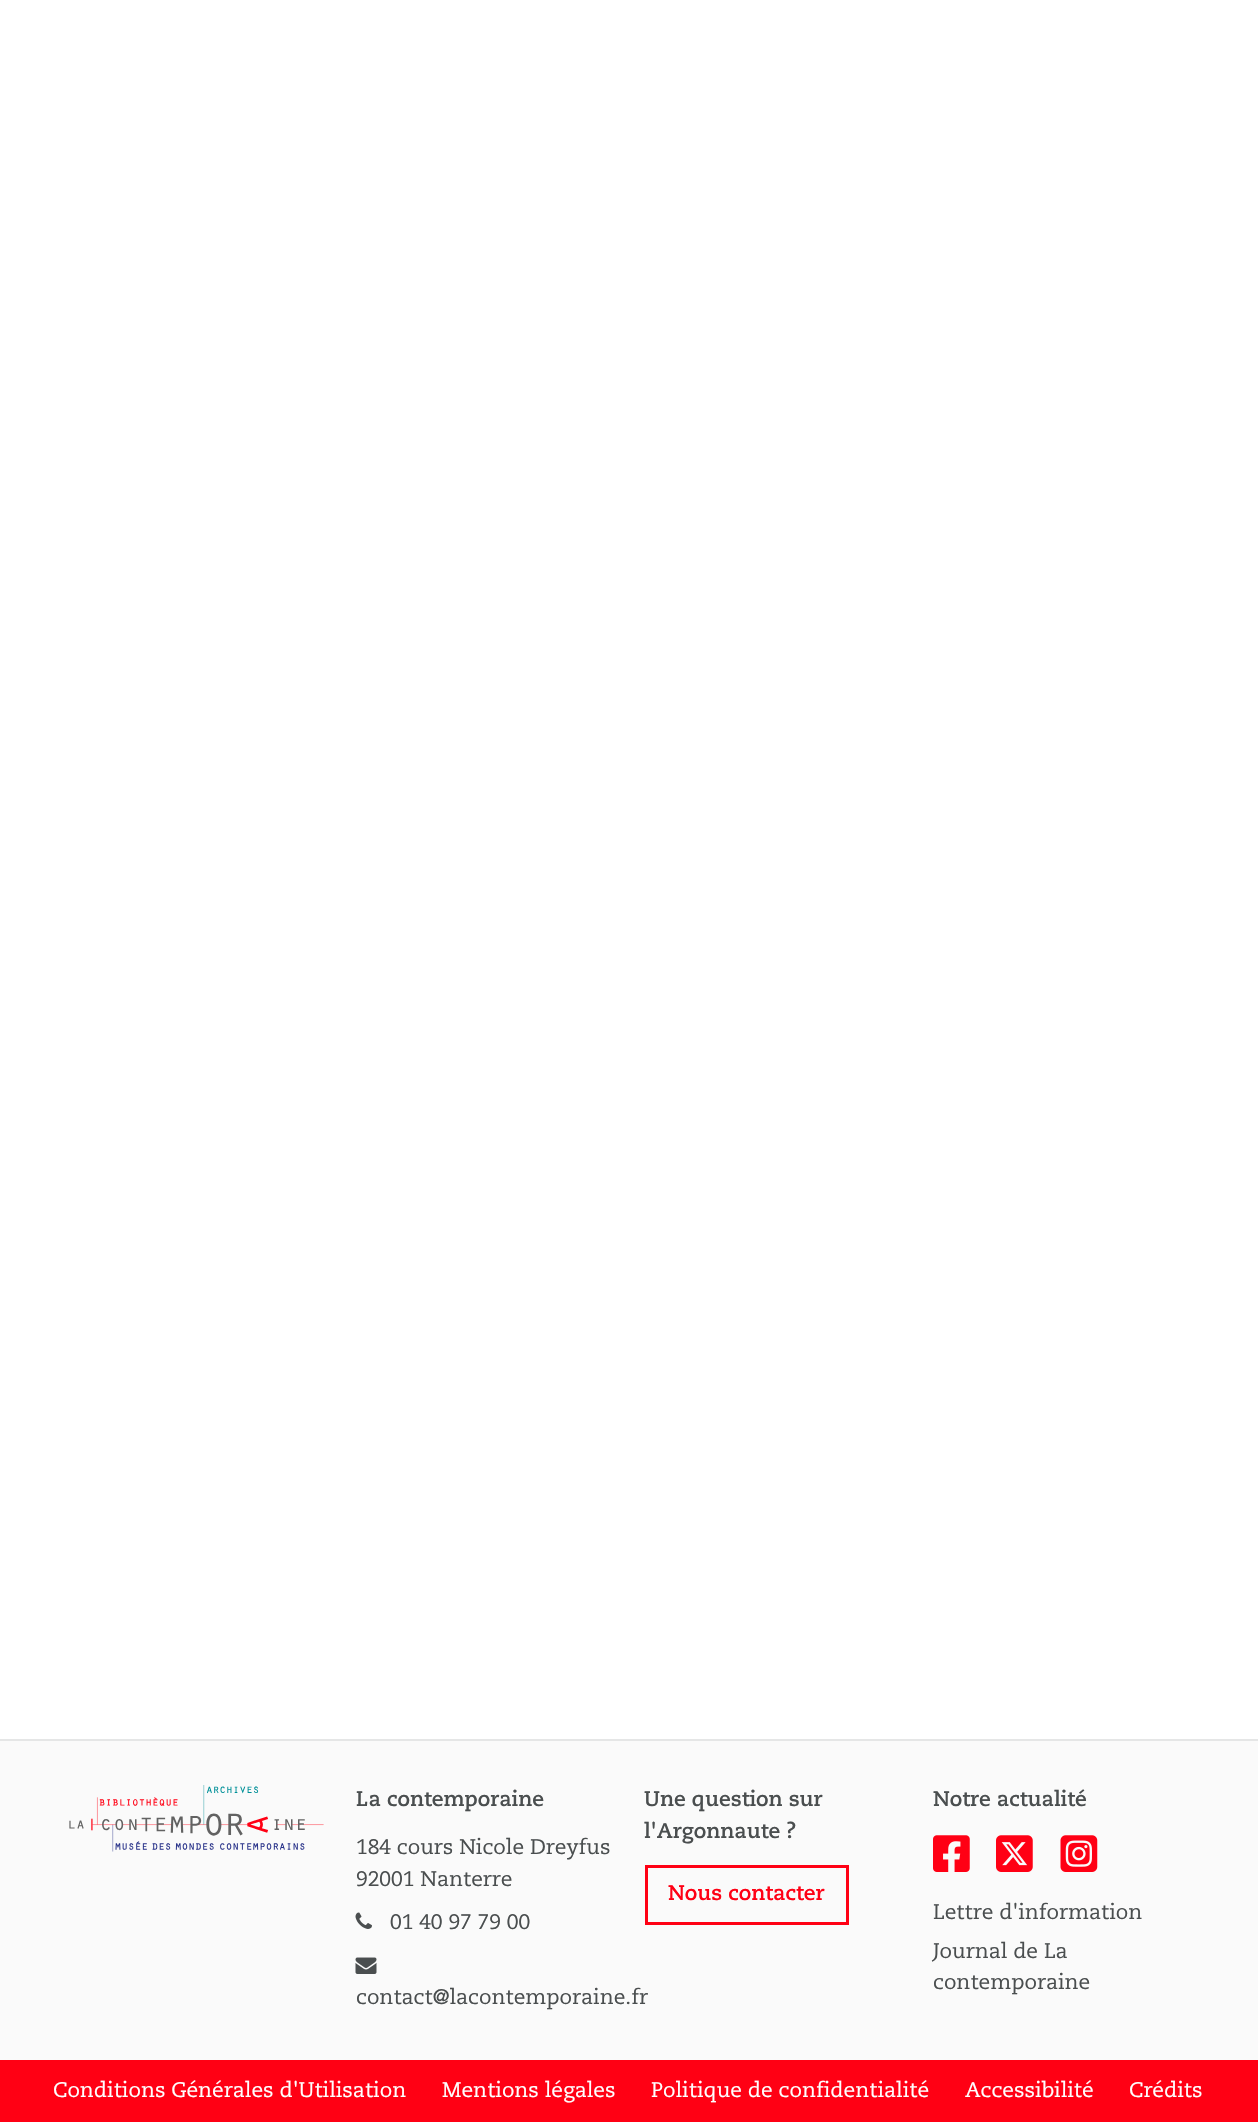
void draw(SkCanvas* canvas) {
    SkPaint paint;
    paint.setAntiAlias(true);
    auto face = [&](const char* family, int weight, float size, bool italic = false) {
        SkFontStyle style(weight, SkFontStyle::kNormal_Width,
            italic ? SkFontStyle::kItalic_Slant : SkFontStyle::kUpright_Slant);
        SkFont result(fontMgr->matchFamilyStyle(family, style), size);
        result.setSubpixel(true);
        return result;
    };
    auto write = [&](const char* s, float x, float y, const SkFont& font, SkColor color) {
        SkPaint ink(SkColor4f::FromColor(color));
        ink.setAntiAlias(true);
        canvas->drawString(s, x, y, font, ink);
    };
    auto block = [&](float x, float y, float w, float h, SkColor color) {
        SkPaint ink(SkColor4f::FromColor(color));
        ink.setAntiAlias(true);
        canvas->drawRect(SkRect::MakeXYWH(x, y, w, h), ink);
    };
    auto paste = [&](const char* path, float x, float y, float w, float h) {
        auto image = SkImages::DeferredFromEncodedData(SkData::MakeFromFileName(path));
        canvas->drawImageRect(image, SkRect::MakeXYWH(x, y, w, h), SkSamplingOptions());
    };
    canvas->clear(SK_ColorWHITE);
    block(0, 1741, 1258, 319, SkColorSetRGB(250, 250, 250));
    block(0, 1739, 1258, 2, SkColorSetRGB(229, 230, 230));
    paste("pic1.png", 69, 1785, 255, 67);
    auto kFont1 = face("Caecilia", 700, 21);
    write("La contemporaine", 356, 1806, kFont1, SkColorSetRGB(74, 78, 79));
    auto kFont2 = face("Caecilia", 400, 21);
    write("184 cours Nicole Dreyfus", 356, 1854, kFont2, SkColorSetRGB(74, 78, 79));
    write("92001 Nanterre", 356, 1886, kFont2, SkColorSetRGB(74, 78, 79));
    paste("pic2.png", 355, 1912, 17, 17);
    write("01 40 97 79 00", 390, 1929, kFont2, SkColorSetRGB(74, 78, 79));
    paste("pic3.png", 355, 1957, 22, 17);
    write("contact@lacontemporaine.fr", 356, 2004, kFont2, SkColorSetRGB(74, 78, 79));
    write("Une question sur", 644, 1806, kFont1, SkColorSetRGB(74, 78, 79));
    write("l'Argonnaute ?", 644, 1838, kFont1, SkColorSetRGB(74, 78, 79));
    paint.setStyle(SkPaint::kStroke_Style);
    paint.setStrokeWidth(3);
    paint.setColor(SkColorSetRGB(255, 0, 20));
    canvas->drawRect(SkRect::MakeXYWH(646.5f, 1866.5f, 201, 57), paint);
    write("Nous contacter", 668, 1900, kFont1, SkColorSetRGB(255, 0, 20));
    write("Notre actualité", 933, 1806, kFont1, SkColorSetRGB(74, 78, 79));
    paste("pic4.png", 933, 1835, 37, 37);
    paste("pic5.png", 996, 1835, 37, 37);
    paste("pic6.png", 1060, 1835, 38, 37);
    write("Lettre d'information", 933, 1919, kFont2, SkColorSetRGB(74, 78, 79));
    write("Journal de La", 933, 1958, kFont2, SkColorSetRGB(74, 78, 79));
    write("contemporaine", 933, 1989, kFont2, SkColorSetRGB(74, 78, 79));
    block(0, 2060, 1258, 62, SkColorSetRGB(255, 0, 20));
    write("Conditions Générales d'Utilisation", 53, 2097, kFont2, SK_ColorWHITE);
    write("Mentions légales", 442, 2097, kFont2, SK_ColorWHITE);
    write("Politique de confidentialité", 651, 2097, kFont2, SK_ColorWHITE);
    write("Accessibilité", 965, 2097, kFont2, SK_ColorWHITE);
    write("Crédits", 1129, 2097, kFont2, SK_ColorWHITE);
}
